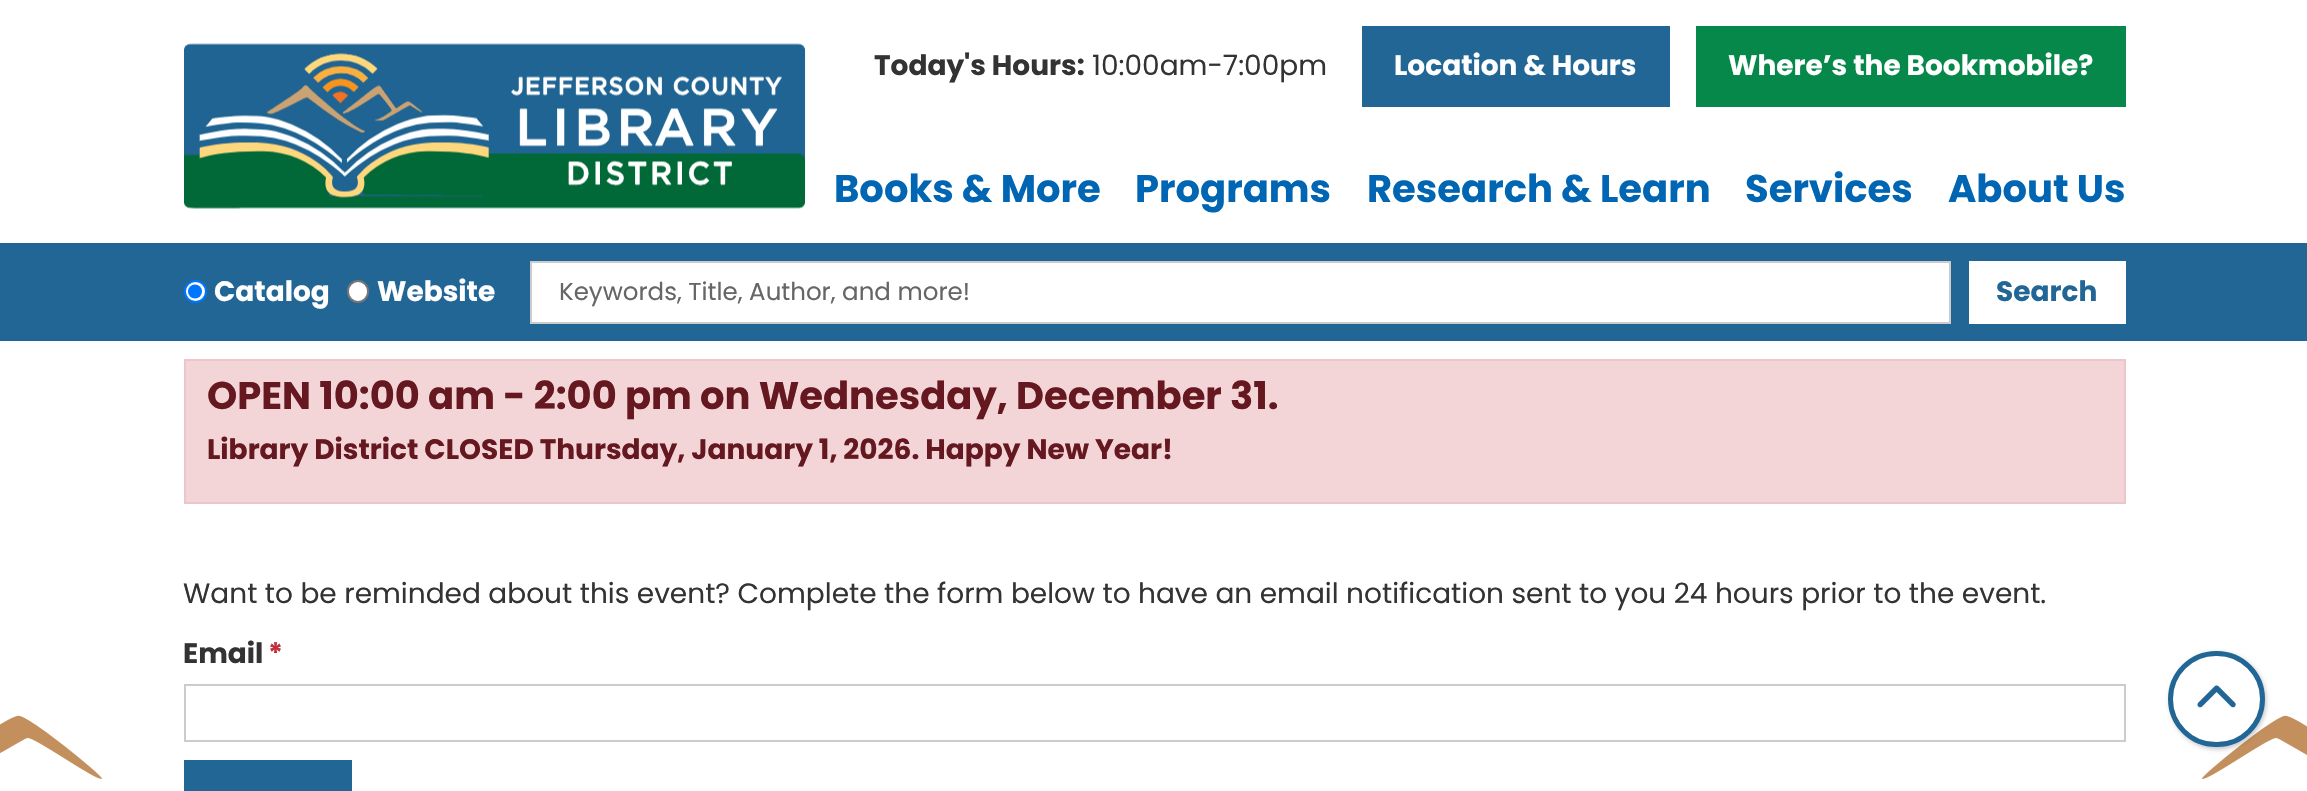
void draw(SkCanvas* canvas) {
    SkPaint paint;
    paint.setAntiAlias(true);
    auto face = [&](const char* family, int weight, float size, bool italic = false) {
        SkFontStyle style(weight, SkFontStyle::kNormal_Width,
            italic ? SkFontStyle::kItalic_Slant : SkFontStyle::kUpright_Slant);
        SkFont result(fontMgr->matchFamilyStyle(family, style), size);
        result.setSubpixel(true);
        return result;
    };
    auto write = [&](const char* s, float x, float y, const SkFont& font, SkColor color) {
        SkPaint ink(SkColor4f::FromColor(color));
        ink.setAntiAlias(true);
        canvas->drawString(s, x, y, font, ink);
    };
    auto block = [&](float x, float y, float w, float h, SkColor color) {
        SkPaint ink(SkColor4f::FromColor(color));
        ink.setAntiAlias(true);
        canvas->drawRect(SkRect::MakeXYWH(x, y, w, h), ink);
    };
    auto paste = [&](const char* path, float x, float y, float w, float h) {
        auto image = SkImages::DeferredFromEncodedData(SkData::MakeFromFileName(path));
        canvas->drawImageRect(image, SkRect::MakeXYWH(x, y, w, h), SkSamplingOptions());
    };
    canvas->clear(SK_ColorWHITE);
    paste("pic1.png", 184, 43, 622, 166);
    auto kFont1 = face("Poppins", 700, 28);
    write("Today's Hours:", 874, 75, kFont1, SkColorSetRGB(51, 51, 51));
    auto kFont2 = face("Poppins", 400, 28);
    write("10:00am-7:00pm", 1092, 75, kFont2, SkColorSetRGB(51, 51, 51));
    block(1362, 26, 308, 81, SkColorSetRGB(34, 102, 150));
    write("Location & Hours", 1394, 75, kFont1, SK_ColorWHITE);
    block(1696, 26, 430, 81, SkColorSetRGB(6, 136, 74));
    write("Where’s the Bookmobile?", 1728, 75, kFont1, SK_ColorWHITE);
    auto kFont3 = face("Poppins", 700, 38.5f);
    write("Books & More", 834, 202, kFont3, SkColorSetRGB(0, 102, 179));
    write("Programs", 1135, 202, kFont3, SkColorSetRGB(0, 102, 179));
    write("Research & Learn", 1367, 202, kFont3, SkColorSetRGB(0, 102, 179));
    write("Services", 1745, 202, kFont3, SkColorSetRGB(0, 102, 179));
    write("About Us", 1948, 202, kFont3, SkColorSetRGB(0, 102, 179));
    block(0, 243, 2307, 98, SkColorSetRGB(34, 102, 150));
    paint.setColor(SK_ColorWHITE);
    canvas->drawCircle(195.5f, 291.5f, 10.5f, paint);
    paint.setStyle(SkPaint::kStroke_Style);
    paint.setStrokeWidth(2);
    paint.setColor(SkColorSetRGB(0, 117, 255));
    canvas->drawCircle(195.5f, 291.5f, 10.5f, paint);
    paint.setStyle(SkPaint::kFill_Style);
    canvas->drawCircle(195, 291.5f, 7, paint);
    write("Catalog", 214, 301, kFont1, SK_ColorWHITE);
    paint.setColor(SK_ColorWHITE);
    canvas->drawRoundRect(SkRect::MakeXYWH(348, 281, 20, 21), 10, 10, paint);
    paint.setStyle(SkPaint::kStroke_Style);
    paint.setColor(SkColorSetRGB(118, 118, 118));
    canvas->drawRoundRect(SkRect::MakeXYWH(348, 281, 20, 21), 10, 10, paint);
    write("Website", 377, 301, kFont1, SK_ColorWHITE);
    paint.setStyle(SkPaint::kFill_Style);
    paint.setColor(SK_ColorWHITE);
    canvas->drawRect(SkRect::MakeXYWH(531, 262, 1419, 61), paint);
    paint.setStyle(SkPaint::kStroke_Style);
    paint.setColor(SkColorSetRGB(204, 204, 204));
    canvas->drawRect(SkRect::MakeXYWH(531, 262, 1419, 61), paint);
    auto kFont4 = face("Poppins", 400, 24.5f);
    write("Keywords, Title, Author, and more!", 559, 300, kFont4, SkColorSetRGB(102, 102, 102));
    block(1969, 261, 157, 63, SK_ColorWHITE);
    write("Search", 1996, 301, kFont1, SkColorSetRGB(34, 102, 150));
    paste("pic2.png", 0, 715, 2307, 64);
    paint.setStyle(SkPaint::kFill_Style);
    paint.setColor(SkColorSetRGB(243, 213, 216));
    canvas->drawRect(SkRect::MakeXYWH(185, 360, 1940, 143), paint);
    paint.setStyle(SkPaint::kStroke_Style);
    paint.setColor(SkColorSetRGB(238, 197, 200));
    canvas->drawRect(SkRect::MakeXYWH(185, 360, 1940, 143), paint);
    write("OPEN 10:00 am - 2:00 pm on Wednesday, December 31.", 207, 409, kFont3, SkColorSetRGB(101, 24, 31));
    write("Library District CLOSED Thursday, January 1, 2026. Happy New Year!", 207, 459, kFont1, SkColorSetRGB(101, 24, 31));
    write("Want to be reminded about this event? Complete the form below to have an email notification sent to you 24 hours prior to the event.", 183, 603, kFont2, SkColorSetRGB(51, 51, 51));
    write("Email", 183, 663, kFont1, SkColorSetRGB(51, 51, 51));
    write("*", 268, 663, kFont1, SkColorSetRGB(194, 47, 59));
    paint.setColor(SkColorSetRGB(204, 204, 204));
    canvas->drawRect(SkRect::MakeXYWH(185, 685, 1940, 56), paint);
    block(184, 760, 168, 31, SkColorSetRGB(34, 102, 150));
    paint.setStyle(SkPaint::kFill_Style);
    paint.setColor(SkColorSetARGB(64, 0, 0, 0));
    paint.setMaskFilter(SkMaskFilter::MakeBlur(kNormal_SkBlurStyle, 2.5f));
    canvas->drawRoundRect(SkRect::MakeXYWH(2170, 653, 96, 96), 48, 48, paint);
    paint.setMaskFilter(nullptr);
    paint.setColor(SK_ColorWHITE);
    canvas->drawRoundRect(SkRect::MakeXYWH(2170.5f, 653.5f, 92, 91), 45.5f, 45.5f, paint);
    paint.setStyle(SkPaint::kStroke_Style);
    paint.setStrokeWidth(5);
    paint.setColor(SkColorSetRGB(34, 102, 150));
    canvas->drawRoundRect(SkRect::MakeXYWH(2170.5f, 653.5f, 92, 91), 45.5f, 45.5f, paint);
    paste("pic3.png", 2197, 685, 39, 23);
}
